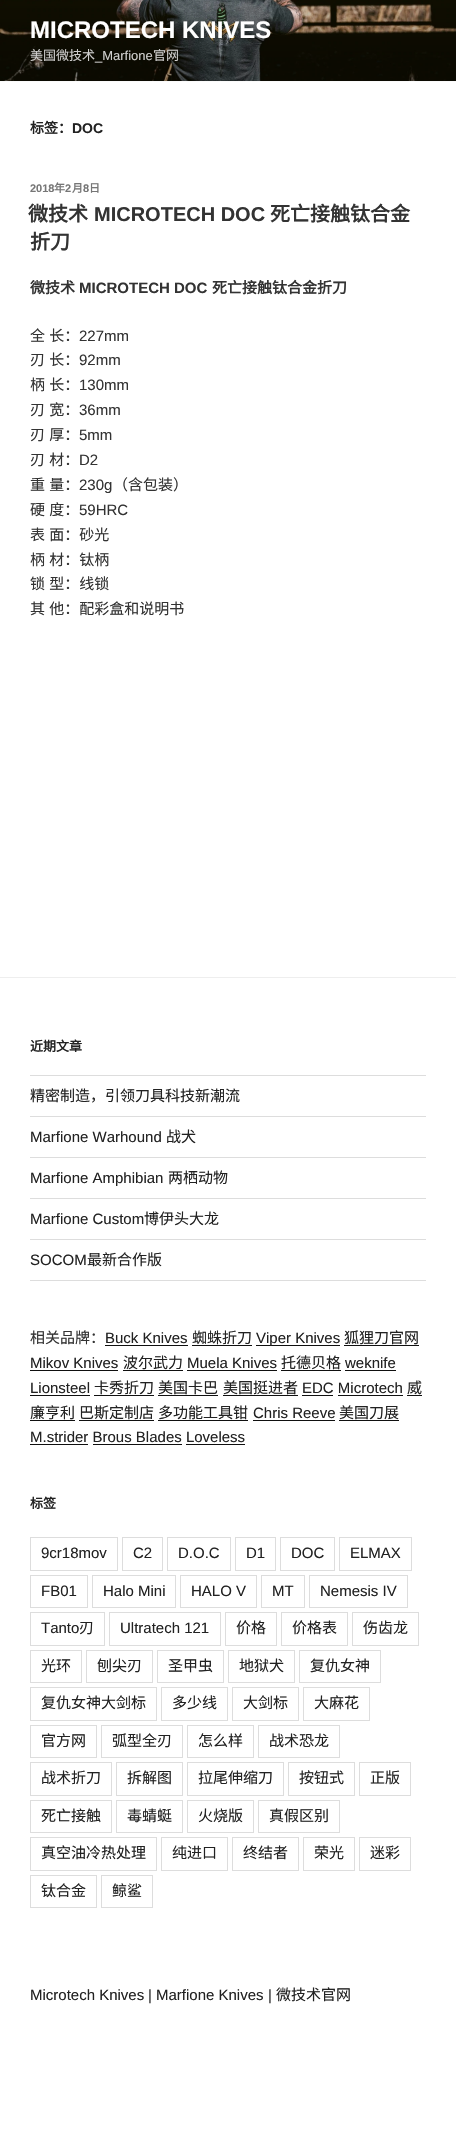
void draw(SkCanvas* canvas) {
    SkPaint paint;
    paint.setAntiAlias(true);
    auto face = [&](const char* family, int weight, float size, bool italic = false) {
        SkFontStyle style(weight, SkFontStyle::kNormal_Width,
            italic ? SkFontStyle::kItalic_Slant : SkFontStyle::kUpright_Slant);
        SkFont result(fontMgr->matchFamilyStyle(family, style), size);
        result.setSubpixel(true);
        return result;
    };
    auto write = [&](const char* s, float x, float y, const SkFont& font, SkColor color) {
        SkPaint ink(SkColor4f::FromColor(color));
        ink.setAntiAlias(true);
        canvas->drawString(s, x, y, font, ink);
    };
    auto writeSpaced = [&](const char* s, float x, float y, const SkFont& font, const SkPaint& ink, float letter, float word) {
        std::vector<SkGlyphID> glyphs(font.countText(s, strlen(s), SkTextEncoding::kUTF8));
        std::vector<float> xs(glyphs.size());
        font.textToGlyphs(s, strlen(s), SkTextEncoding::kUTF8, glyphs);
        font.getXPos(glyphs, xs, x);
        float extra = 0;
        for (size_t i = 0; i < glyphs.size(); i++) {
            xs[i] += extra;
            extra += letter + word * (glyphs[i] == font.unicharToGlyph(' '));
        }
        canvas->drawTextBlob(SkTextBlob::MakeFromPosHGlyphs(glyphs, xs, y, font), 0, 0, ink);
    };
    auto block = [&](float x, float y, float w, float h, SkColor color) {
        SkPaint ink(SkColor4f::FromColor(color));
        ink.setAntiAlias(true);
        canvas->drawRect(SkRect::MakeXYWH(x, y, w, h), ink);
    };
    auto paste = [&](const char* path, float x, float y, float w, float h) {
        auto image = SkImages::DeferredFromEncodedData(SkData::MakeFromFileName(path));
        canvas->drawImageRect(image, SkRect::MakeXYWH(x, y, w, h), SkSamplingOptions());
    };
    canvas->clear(SK_ColorWHITE);
    block(0, 81, 456, 1, SkColorSetRGB(250, 250, 250));
    paste("pic1.png", 0, 0, 456, 81);
    auto kFont1 = face("Liberation Sans", 700, 24);
    write("MICROTECH KNIVES", 30, 38, kFont1, SK_ColorWHITE);
    auto kFont2 = face("Noto Sans CJK SC", 400, 13);
    write("美国微技术", 30, 60, kFont2, SkColorSetRGB(207, 206, 205));
    auto kFont3 = face("Liberation Sans", 400, 13);
    write("_Marfione", 95, 60, kFont3, SkColorSetRGB(207, 206, 205));
    write("官网", 153, 60, kFont2, SkColorSetRGB(207, 206, 205));
    auto kFont4 = face("Noto Sans CJK SC", 700, 14);
    write("标签：", 30, 133, kFont4, SkColorSetRGB(34, 34, 34));
    auto kFont5 = face("Liberation Sans", 700, 14);
    write("DOC", 72, 133, kFont5, SkColorSetRGB(34, 34, 34));
    auto kFont6 = face("Liberation Sans", 700, 11);
    write("2018", 30, 192, kFont6, SkColorSetRGB(118, 118, 118));
    auto kFont7 = face("Noto Sans CJK SC", 700, 11);
    write("年", 54, 192, kFont7, SkColorSetRGB(118, 118, 118));
    write("2", 65, 192, kFont6, SkColorSetRGB(118, 118, 118));
    write("月", 72, 192, kFont7, SkColorSetRGB(118, 118, 118));
    write("8", 83, 192, kFont6, SkColorSetRGB(118, 118, 118));
    write("日", 89, 192, kFont7, SkColorSetRGB(118, 118, 118));
    auto kFont8 = face("Noto Sans CJK SC", 700, 20);
    write("微技术", 28, 221, kFont8, SkColorSetRGB(51, 51, 51));
    auto kFont9 = face("Liberation Sans", 700, 20);
    write("MICROTECH DOC", 94, 221, kFont9, SkColorSetRGB(51, 51, 51));
    write("死亡接触钛合金", 270, 221, kFont8, SkColorSetRGB(51, 51, 51));
    write("折刀", 30, 249, kFont8, SkColorSetRGB(51, 51, 51));
    auto kFont10 = face("Noto Sans CJK SC", 700, 15);
    write("微技术", 30, 293, kFont10, SkColorSetRGB(51, 51, 51));
    auto kFont11 = face("Liberation Sans", 700, 15);
    write("MICROTECH DOC", 79, 293, kFont11, SkColorSetRGB(51, 51, 51));
    write("死亡接触钛合金折刀", 212, 293, kFont10, SkColorSetRGB(51, 51, 51));
    auto kFont12 = face("Noto Sans CJK SC", 400, 15);
    paint.setColor(SkColorSetRGB(51, 51, 51));
    writeSpaced("全 长：", 30, 341, kFont12, paint, 0, 1);
    auto kFont13 = face("Liberation Sans", 400, 15);
    write("227mm", 79, 341, kFont13, SkColorSetRGB(51, 51, 51));
    writeSpaced("刃 长：", 30, 365, kFont12, paint, 0, 1);
    write("92mm", 79, 365, kFont13, SkColorSetRGB(51, 51, 51));
    writeSpaced("柄 长：", 30, 390, kFont12, paint, 0, 1);
    write("130mm", 79, 390, kFont13, SkColorSetRGB(51, 51, 51));
    writeSpaced("刃 宽：", 30, 415, kFont12, paint, 0, 1);
    write("36mm", 79, 415, kFont13, SkColorSetRGB(51, 51, 51));
    writeSpaced("刃 厚：", 30, 440, kFont12, paint, 0, 1);
    write("5mm", 79, 440, kFont13, SkColorSetRGB(51, 51, 51));
    writeSpaced("刃 材：", 30, 465, kFont12, paint, 0, 1);
    write("D2", 79, 465, kFont13, SkColorSetRGB(51, 51, 51));
    writeSpaced("重 量：", 30, 490, kFont12, paint, 0, 1);
    write("230g", 79, 490, kFont13, SkColorSetRGB(51, 51, 51));
    write("（含包装）", 113, 490, kFont12, SkColorSetRGB(51, 51, 51));
    writeSpaced("硬 度：", 30, 515, kFont12, paint, 0, 1);
    write("59HRC", 79, 515, kFont13, SkColorSetRGB(51, 51, 51));
    writeSpaced("表 面：砂光", 30, 540, kFont12, paint, 0, 1);
    writeSpaced("柄 材：钛柄", 30, 565, kFont12, paint, 0, 1);
    writeSpaced("锁 型：线锁", 30, 589, kFont12, paint, 0, 1);
    writeSpaced("其 他：配彩盒和说明书", 30, 614, kFont12, paint, 0, 1);
    block(0, 977, 456, 1, SkColorSetRGB(238, 238, 238));
    auto kFont14 = face("Noto Sans CJK SC", 700, 13);
    write("近期文章", 30, 1051, kFont14, SkColorSetRGB(34, 34, 34));
    block(30, 1075, 396, 1, SkColorSetRGB(221, 221, 221));
    block(30, 1116, 396, 1, SkColorSetRGB(221, 221, 221));
    write("精密制造，引领刀具科技新潮流", 30, 1101, kFont12, SkColorSetRGB(34, 34, 34));
    block(30, 1157, 396, 1, SkColorSetRGB(221, 221, 221));
    write("Marfione Warhound", 30, 1142, kFont13, SkColorSetRGB(34, 34, 34));
    write("战犬", 166, 1142, kFont12, SkColorSetRGB(34, 34, 34));
    block(30, 1198, 396, 1, SkColorSetRGB(221, 221, 221));
    write("Marfione Amphibian", 30, 1183, kFont13, SkColorSetRGB(34, 34, 34));
    write("两栖动物", 168, 1183, kFont12, SkColorSetRGB(34, 34, 34));
    block(30, 1239, 396, 1, SkColorSetRGB(221, 221, 221));
    write("Marfione Custom", 30, 1224, kFont13, SkColorSetRGB(34, 34, 34));
    write("博伊头大龙", 144, 1224, kFont12, SkColorSetRGB(34, 34, 34));
    block(30, 1280, 396, 1, SkColorSetRGB(221, 221, 221));
    write("SOCOM", 30, 1265, kFont13, SkColorSetRGB(34, 34, 34));
    write("最新合作版", 87, 1265, kFont12, SkColorSetRGB(34, 34, 34));
    write("相关品牌：", 30, 1343, kFont12, SkColorSetRGB(51, 51, 51));
    write("Buck Knives", 105, 1343, kFont13, SkColorSetRGB(34, 34, 34));
    block(105, 1345, 83, 1, SkColorSetRGB(15, 15, 15));
    write("蜘蛛折刀", 192, 1343, kFont12, SkColorSetRGB(34, 34, 34));
    block(192, 1345, 60, 1, SkColorSetRGB(15, 15, 15));
    block(256, 1345, 84, 1, SkColorSetRGB(15, 15, 15));
    write("Viper Knives", 256, 1343, kFont13, SkColorSetRGB(34, 34, 34));
    write("狐狸刀官网", 344, 1343, kFont12, SkColorSetRGB(34, 34, 34));
    block(344, 1345, 75, 1, SkColorSetRGB(15, 15, 15));
    write("Mikov Knives", 30, 1368, kFont13, SkColorSetRGB(34, 34, 34));
    block(30, 1370, 88, 1, SkColorSetRGB(15, 15, 15));
    write("波尔武力", 123, 1368, kFont12, SkColorSetRGB(34, 34, 34));
    block(123, 1370, 60, 1, SkColorSetRGB(15, 15, 15));
    write("Muela Knives", 187, 1368, kFont13, SkColorSetRGB(34, 34, 34));
    block(187, 1370, 90, 1, SkColorSetRGB(15, 15, 15));
    write("托德贝格", 281, 1368, kFont12, SkColorSetRGB(34, 34, 34));
    block(281, 1370, 60, 1, SkColorSetRGB(15, 15, 15));
    write("weknife", 345, 1368, kFont13, SkColorSetRGB(34, 34, 34));
    block(345, 1370, 51, 1, SkColorSetRGB(15, 15, 15));
    write("Lionsteel", 30, 1393, kFont13, SkColorSetRGB(34, 34, 34));
    block(30, 1395, 60, 1, SkColorSetRGB(15, 15, 15));
    write("卡秀折刀", 94, 1393, kFont12, SkColorSetRGB(34, 34, 34));
    block(94, 1395, 60, 1, SkColorSetRGB(15, 15, 15));
    write("美国卡巴", 158, 1393, kFont12, SkColorSetRGB(34, 34, 34));
    block(158, 1395, 60, 1, SkColorSetRGB(15, 15, 15));
    write("美国挺进者", 223, 1393, kFont12, SkColorSetRGB(34, 34, 34));
    block(223, 1395, 75, 1, SkColorSetRGB(15, 15, 15));
    write("EDC Microtech", 302, 1393, kFont13, SkColorSetRGB(34, 34, 34));
    block(302, 1395, 31, 1, SkColorSetRGB(15, 15, 15));
    write("威", 407, 1393, kFont12, SkColorSetRGB(34, 34, 34));
    block(407, 1395, 15, 1, SkColorSetRGB(15, 15, 15));
    block(338, 1395, 65, 1, SkColorSetRGB(15, 15, 15));
    write("廉亨利", 30, 1418, kFont12, SkColorSetRGB(34, 34, 34));
    block(30, 1420, 45, 1, SkColorSetRGB(15, 15, 15));
    write("巴斯定制店", 79, 1418, kFont12, SkColorSetRGB(34, 34, 34));
    block(79, 1420, 75, 1, SkColorSetRGB(15, 15, 15));
    write("多功能工具钳", 158, 1418, kFont12, SkColorSetRGB(34, 34, 34));
    block(158, 1420, 90, 1, SkColorSetRGB(15, 15, 15));
    write("Chris Reeve", 253, 1418, kFont13, SkColorSetRGB(34, 34, 34));
    block(253, 1420, 82, 1, SkColorSetRGB(15, 15, 15));
    write("美国刀展", 339, 1418, kFont12, SkColorSetRGB(34, 34, 34));
    block(339, 1420, 60, 1, SkColorSetRGB(15, 15, 15));
    write("M.strider Brous Blades Loveless", 30, 1442, kFont13, SkColorSetRGB(34, 34, 34));
    block(30, 1444, 58, 1, SkColorSetRGB(15, 15, 15));
    block(93, 1444, 89, 1, SkColorSetRGB(15, 15, 15));
    block(186, 1444, 59, 1, SkColorSetRGB(15, 15, 15));
    write("标签", 30, 1508, kFont14, SkColorSetRGB(34, 34, 34));
    paint.setStyle(SkPaint::kStroke_Style);
    paint.setStrokeWidth(1);
    paint.setColor(SkColorSetRGB(221, 221, 221));
    canvas->drawRect(SkRect::MakeXYWH(30.5f, 1537.5f, 87, 33), paint);
    write("9cr18mov", 41, 1558, kFont13, SkColorSetRGB(34, 34, 34));
    canvas->drawRect(SkRect::MakeXYWH(122.5f, 1537.5f, 40, 33), paint);
    write("C2", 133, 1558, kFont13, SkColorSetRGB(34, 34, 34));
    canvas->drawRect(SkRect::MakeXYWH(167.5f, 1537.5f, 63, 33), paint);
    write("D.O.C", 178, 1558, kFont13, SkColorSetRGB(34, 34, 34));
    canvas->drawRect(SkRect::MakeXYWH(235.5f, 1537.5f, 40, 33), paint);
    write("D1", 246, 1558, kFont13, SkColorSetRGB(34, 34, 34));
    canvas->drawRect(SkRect::MakeXYWH(280.5f, 1537.5f, 54, 33), paint);
    write("DOC", 291, 1558, kFont13, SkColorSetRGB(34, 34, 34));
    canvas->drawRect(SkRect::MakeXYWH(339.5f, 1537.5f, 72, 33), paint);
    write("ELMAX", 350, 1558, kFont13, SkColorSetRGB(34, 34, 34));
    canvas->drawRect(SkRect::MakeXYWH(30.5f, 1575.5f, 57, 32), paint);
    write("FB01", 41, 1596, kFont13, SkColorSetRGB(34, 34, 34));
    canvas->drawRect(SkRect::MakeXYWH(92.5f, 1575.5f, 83, 32), paint);
    write("Halo Mini", 103, 1596, kFont13, SkColorSetRGB(34, 34, 34));
    canvas->drawRect(SkRect::MakeXYWH(180.5f, 1575.5f, 76, 32), paint);
    write("HALO V", 191, 1596, kFont13, SkColorSetRGB(34, 34, 34));
    canvas->drawRect(SkRect::MakeXYWH(261.5f, 1575.5f, 43, 32), paint);
    write("MT", 272, 1596, kFont13, SkColorSetRGB(34, 34, 34));
    canvas->drawRect(SkRect::MakeXYWH(309.5f, 1575.5f, 98, 32), paint);
    write("Nemesis IV", 320, 1596, kFont13, SkColorSetRGB(34, 34, 34));
    canvas->drawRect(SkRect::MakeXYWH(30.5f, 1612.5f, 74, 33), paint);
    write("Tanto", 41, 1633, kFont13, SkColorSetRGB(34, 34, 34));
    write("刃", 79, 1633, kFont12, SkColorSetRGB(34, 34, 34));
    canvas->drawRect(SkRect::MakeXYWH(109.5f, 1612.5f, 111, 33), paint);
    write("Ultratech 121", 120, 1633, kFont13, SkColorSetRGB(34, 34, 34));
    canvas->drawRect(SkRect::MakeXYWH(225.5f, 1612.5f, 51, 33), paint);
    write("价格", 236, 1633, kFont12, SkColorSetRGB(34, 34, 34));
    canvas->drawRect(SkRect::MakeXYWH(281.5f, 1612.5f, 66, 33), paint);
    write("价格表", 292, 1633, kFont12, SkColorSetRGB(34, 34, 34));
    canvas->drawRect(SkRect::MakeXYWH(352.5f, 1612.5f, 66, 33), paint);
    write("伤齿龙", 363, 1633, kFont12, SkColorSetRGB(34, 34, 34));
    canvas->drawRect(SkRect::MakeXYWH(30.5f, 1650.5f, 51, 32), paint);
    write("光环", 41, 1671, kFont12, SkColorSetRGB(34, 34, 34));
    canvas->drawRect(SkRect::MakeXYWH(86.5f, 1650.5f, 66, 32), paint);
    write("刨尖刃", 97, 1671, kFont12, SkColorSetRGB(34, 34, 34));
    canvas->drawRect(SkRect::MakeXYWH(157.5f, 1650.5f, 66, 32), paint);
    write("圣甲虫", 168, 1671, kFont12, SkColorSetRGB(34, 34, 34));
    canvas->drawRect(SkRect::MakeXYWH(228.5f, 1650.5f, 66, 32), paint);
    write("地狱犬", 239, 1671, kFont12, SkColorSetRGB(34, 34, 34));
    canvas->drawRect(SkRect::MakeXYWH(299.5f, 1650.5f, 81, 32), paint);
    write("复仇女神", 310, 1671, kFont12, SkColorSetRGB(34, 34, 34));
    canvas->drawRect(SkRect::MakeXYWH(30.5f, 1687.5f, 126, 33), paint);
    write("复仇女神大剑标", 41, 1708, kFont12, SkColorSetRGB(34, 34, 34));
    canvas->drawRect(SkRect::MakeXYWH(161.5f, 1687.5f, 66, 33), paint);
    write("多少线", 172, 1708, kFont12, SkColorSetRGB(34, 34, 34));
    canvas->drawRect(SkRect::MakeXYWH(232.5f, 1687.5f, 66, 33), paint);
    write("大剑标", 243, 1708, kFont12, SkColorSetRGB(34, 34, 34));
    canvas->drawRect(SkRect::MakeXYWH(303.5f, 1687.5f, 66, 33), paint);
    write("大麻花", 314, 1708, kFont12, SkColorSetRGB(34, 34, 34));
    canvas->drawRect(SkRect::MakeXYWH(30.5f, 1725.5f, 66, 32), paint);
    write("官方网", 41, 1746, kFont12, SkColorSetRGB(34, 34, 34));
    canvas->drawRect(SkRect::MakeXYWH(101.5f, 1725.5f, 81, 32), paint);
    write("弧型全刃", 112, 1746, kFont12, SkColorSetRGB(34, 34, 34));
    canvas->drawRect(SkRect::MakeXYWH(187.5f, 1725.5f, 66, 32), paint);
    write("怎么样", 198, 1746, kFont12, SkColorSetRGB(34, 34, 34));
    canvas->drawRect(SkRect::MakeXYWH(258.5f, 1725.5f, 81, 32), paint);
    write("战术恐龙", 269, 1746, kFont12, SkColorSetRGB(34, 34, 34));
    canvas->drawRect(SkRect::MakeXYWH(30.5f, 1762.5f, 81, 33), paint);
    write("战术折刀", 41, 1783, kFont12, SkColorSetRGB(34, 34, 34));
    canvas->drawRect(SkRect::MakeXYWH(116.5f, 1762.5f, 66, 33), paint);
    write("拆解图", 127, 1783, kFont12, SkColorSetRGB(34, 34, 34));
    canvas->drawRect(SkRect::MakeXYWH(187.5f, 1762.5f, 96, 33), paint);
    write("拉尾伸缩刀", 198, 1783, kFont12, SkColorSetRGB(34, 34, 34));
    canvas->drawRect(SkRect::MakeXYWH(288.5f, 1762.5f, 66, 33), paint);
    write("按钮式", 299, 1783, kFont12, SkColorSetRGB(34, 34, 34));
    canvas->drawRect(SkRect::MakeXYWH(359.5f, 1762.5f, 51, 33), paint);
    write("正版", 370, 1783, kFont12, SkColorSetRGB(34, 34, 34));
    canvas->drawRect(SkRect::MakeXYWH(30.5f, 1800.5f, 81, 32), paint);
    write("死亡接触", 41, 1821, kFont12, SkColorSetRGB(34, 34, 34));
    canvas->drawRect(SkRect::MakeXYWH(116.5f, 1800.5f, 66, 32), paint);
    write("毒蜻蜓", 127, 1821, kFont12, SkColorSetRGB(34, 34, 34));
    canvas->drawRect(SkRect::MakeXYWH(187.5f, 1800.5f, 66, 32), paint);
    write("火烧版", 198, 1821, kFont12, SkColorSetRGB(34, 34, 34));
    canvas->drawRect(SkRect::MakeXYWH(258.5f, 1800.5f, 81, 32), paint);
    write("真假区别", 269, 1821, kFont12, SkColorSetRGB(34, 34, 34));
    canvas->drawRect(SkRect::MakeXYWH(30.5f, 1837.5f, 126, 33), paint);
    write("真空油冷热处理", 41, 1858, kFont12, SkColorSetRGB(34, 34, 34));
    canvas->drawRect(SkRect::MakeXYWH(161.5f, 1837.5f, 66, 33), paint);
    write("纯进口", 172, 1858, kFont12, SkColorSetRGB(34, 34, 34));
    canvas->drawRect(SkRect::MakeXYWH(232.5f, 1837.5f, 66, 33), paint);
    write("终结者", 243, 1858, kFont12, SkColorSetRGB(34, 34, 34));
    canvas->drawRect(SkRect::MakeXYWH(303.5f, 1837.5f, 51, 33), paint);
    write("荣光", 314, 1858, kFont12, SkColorSetRGB(34, 34, 34));
    canvas->drawRect(SkRect::MakeXYWH(359.5f, 1837.5f, 51, 33), paint);
    write("迷彩", 370, 1858, kFont12, SkColorSetRGB(34, 34, 34));
    canvas->drawRect(SkRect::MakeXYWH(30.5f, 1875.5f, 66, 32), paint);
    write("钛合金", 41, 1896, kFont12, SkColorSetRGB(34, 34, 34));
    canvas->drawRect(SkRect::MakeXYWH(101.5f, 1875.5f, 51, 32), paint);
    write("鲸鲨", 112, 1896, kFont12, SkColorSetRGB(34, 34, 34));
    write("Microtech Knives", 30, 2000, kFont13, SkColorSetRGB(34, 34, 34));
    write("|", 148, 2000, kFont13, SkColorSetRGB(51, 51, 51));
    write("Marfione Knives", 156, 2000, kFont13, SkColorSetRGB(34, 34, 34));
    write("|", 268, 2000, kFont13, SkColorSetRGB(51, 51, 51));
    write("微技术官网", 276, 2000, kFont12, SkColorSetRGB(34, 34, 34));
}
